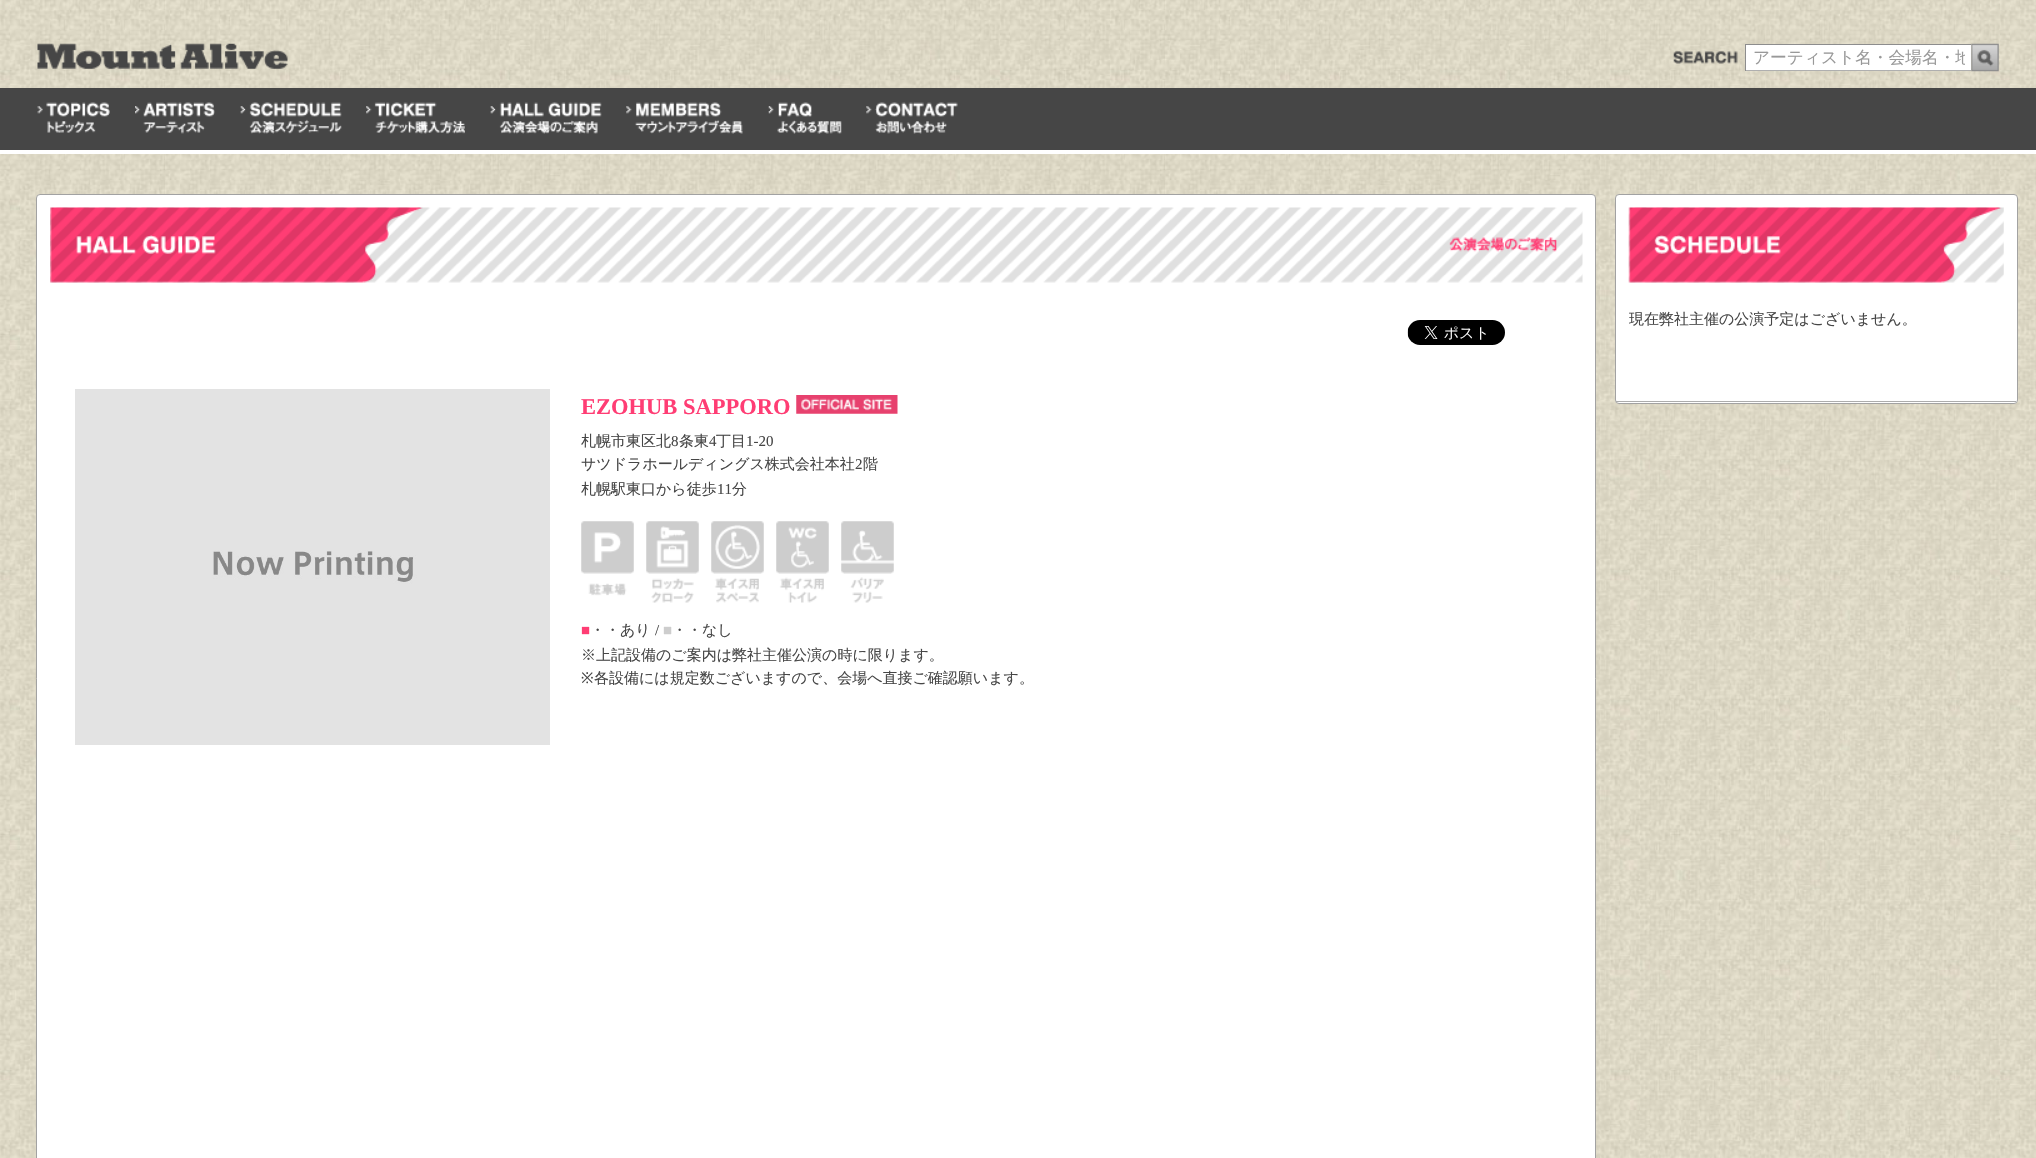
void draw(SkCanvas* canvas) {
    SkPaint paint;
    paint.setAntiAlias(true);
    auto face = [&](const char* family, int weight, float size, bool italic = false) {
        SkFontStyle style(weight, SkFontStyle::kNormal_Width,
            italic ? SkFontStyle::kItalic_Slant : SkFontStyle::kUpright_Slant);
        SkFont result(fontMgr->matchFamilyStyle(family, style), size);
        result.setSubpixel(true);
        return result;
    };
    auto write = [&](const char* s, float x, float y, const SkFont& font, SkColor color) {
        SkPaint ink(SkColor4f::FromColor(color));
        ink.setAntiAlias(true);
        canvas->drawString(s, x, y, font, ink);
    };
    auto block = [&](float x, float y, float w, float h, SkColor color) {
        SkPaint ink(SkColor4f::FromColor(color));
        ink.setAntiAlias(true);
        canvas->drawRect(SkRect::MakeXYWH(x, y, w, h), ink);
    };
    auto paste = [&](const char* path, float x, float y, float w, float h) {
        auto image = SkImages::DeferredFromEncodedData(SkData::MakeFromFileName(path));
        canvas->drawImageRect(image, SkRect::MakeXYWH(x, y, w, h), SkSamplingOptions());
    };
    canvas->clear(SK_ColorWHITE);
    paste("pic1.png", 0, 0, 2036, 1158);
    paste("pic2.png", 37, 43, 251, 26);
    paste("pic3.png", 1673, 51, 65, 13);
    block(1746, 45, 225, 25, SK_ColorWHITE);
    block(1745, 44, 226, 1, SkColorSetRGB(141, 141, 141));
    block(1745, 70, 226, 1, SkColorSetRGB(175, 175, 175));
    block(1745, 44, 1, 27, SkColorSetRGB(141, 141, 141));
    canvas->save();
    canvas->clipRect(SkRect::MakeXYWH(1753, 46, 212, 23));
    auto kFont1 = face("WenQuanYi Zen Hei", 500, 16.7f);
    write("アーティスト名・会場名・地", 1753, 63, kFont1, SkColorSetRGB(153, 153, 153));
    canvas->restore();
    paste("pic4.png", 1971, 43, 28, 29);
    block(0, 88, 2036, 62, SkColorSetRGB(70, 70, 70));
    block(0, 150, 2036, 4, SK_ColorWHITE);
    paste("pic5.png", 37, 102, 73, 31);
    paste("pic6.png", 135, 102, 80, 32);
    paste("pic7.png", 240, 102, 102, 32);
    paste("pic8.png", 366, 102, 99, 32);
    paste("pic9.png", 490, 102, 112, 32);
    paste("pic10.png", 626, 102, 117, 32);
    paste("pic11.png", 768, 102, 74, 32);
    paste("pic12.png", 866, 102, 92, 32);
    paint.setColor(SK_ColorWHITE);
    canvas->drawRoundRect(SkRect::MakeXYWH(1615.5f, 194.5f, 402, 209), 3.5f, 3.5f, paint);
    paint.setStyle(SkPaint::kStroke_Style);
    paint.setStrokeWidth(1);
    paint.setColor(SkColorSetRGB(162, 162, 162));
    canvas->drawRoundRect(SkRect::MakeXYWH(1615.5f, 194.5f, 402, 209), 3.5f, 3.5f, paint);
    paste("pic13.png", 1628, 207, 376, 76);
    paste("pic14.png", 1628, 207, 374, 76);
    block(1616, 401, 400, 1, SkColorSetRGB(172, 172, 172));
    auto kFont2 = face("WenQuanYi Zen Hei", 500, 15);
    write("現在弊社主催の公演予定はございません。", 1629, 324, kFont2, SkColorSetRGB(70, 70, 70));
    paint.setStyle(SkPaint::kFill_Style);
    paint.setColor(SK_ColorWHITE);
    canvas->drawRoundRect(SkRect::MakeXYWH(36.5f, 194.5f, 1559, 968), 3.5f, 3.5f, paint);
    paint.setStyle(SkPaint::kStroke_Style);
    paint.setColor(SkColorSetRGB(162, 162, 162));
    canvas->drawRoundRect(SkRect::MakeXYWH(36.5f, 194.5f, 1559, 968), 3.5f, 3.5f, paint);
    paste("pic15.png", 50, 207, 1533, 76);
    paste("pic16.png", 50, 207, 373, 76);
    paste("pic17.png", 1449, 237, 108, 15);
    paste("pic18.png", 1407, 320, 98, 25);
    paste("pic19.png", 75, 389, 475, 356);
    auto kFont3 = face("Liberation Serif", 700, 22.5f);
    write("EZOHUB SAPPORO", 581, 414, kFont3, SkColorSetRGB(255, 61, 116));
    paste("pic20.png", 796, 395, 102, 19);
    write("札幌市東区北", 581, 446, kFont2, SkColorSetRGB(70, 70, 70));
    auto kFont4 = face("Liberation Serif", 400, 15);
    write("8", 671, 446, kFont4, SkColorSetRGB(70, 70, 70));
    write("条東", 679, 446, kFont2, SkColorSetRGB(70, 70, 70));
    write("4", 709, 446, kFont4, SkColorSetRGB(70, 70, 70));
    write("丁目", 716, 446, kFont2, SkColorSetRGB(70, 70, 70));
    write("1-20", 746, 446, kFont4, SkColorSetRGB(70, 70, 70));
    write("サツドラホールディングス株式会社本社", 581, 469, kFont2, SkColorSetRGB(70, 70, 70));
    write("2", 855, 469, kFont4, SkColorSetRGB(70, 70, 70));
    write("階", 863, 469, kFont2, SkColorSetRGB(70, 70, 70));
    write("札幌駅東口から徒歩", 581, 494, kFont2, SkColorSetRGB(70, 70, 70));
    write("11", 717, 494, kFont4, SkColorSetRGB(70, 70, 70));
    write("分", 732, 494, kFont2, SkColorSetRGB(70, 70, 70));
    paste("pic21.png", 581, 521, 53, 75);
    paste("pic22.png", 646, 521, 53, 82);
    paste("pic23.png", 711, 521, 53, 82);
    paste("pic24.png", 776, 521, 53, 82);
    paste("pic25.png", 841, 521, 53, 82);
    write("■", 581, 635, kFont4, SkColorSetRGB(255, 61, 116));
    write("・・あり", 590, 635, kFont2, SkColorSetRGB(70, 70, 70));
    write("/", 655, 635, kFont4, SkColorSetRGB(70, 70, 70));
    write("■", 663, 635, kFont4, SkColorSetRGB(205, 205, 205));
    write("・・なし", 672, 635, kFont2, SkColorSetRGB(70, 70, 70));
    write("※上記設備のご案内は弊社主催公演の時に限ります。", 581, 660, kFont2, SkColorSetRGB(70, 70, 70));
    auto kFont5 = face("Noto Sans", 400, 15);
    write("※", 581, 683, kFont5, SkColorSetRGB(70, 70, 70));
    write("各設備には規定数ございますので、会場へ直接ご確認願います。", 594, 683, kFont2, SkColorSetRGB(70, 70, 70));
}
